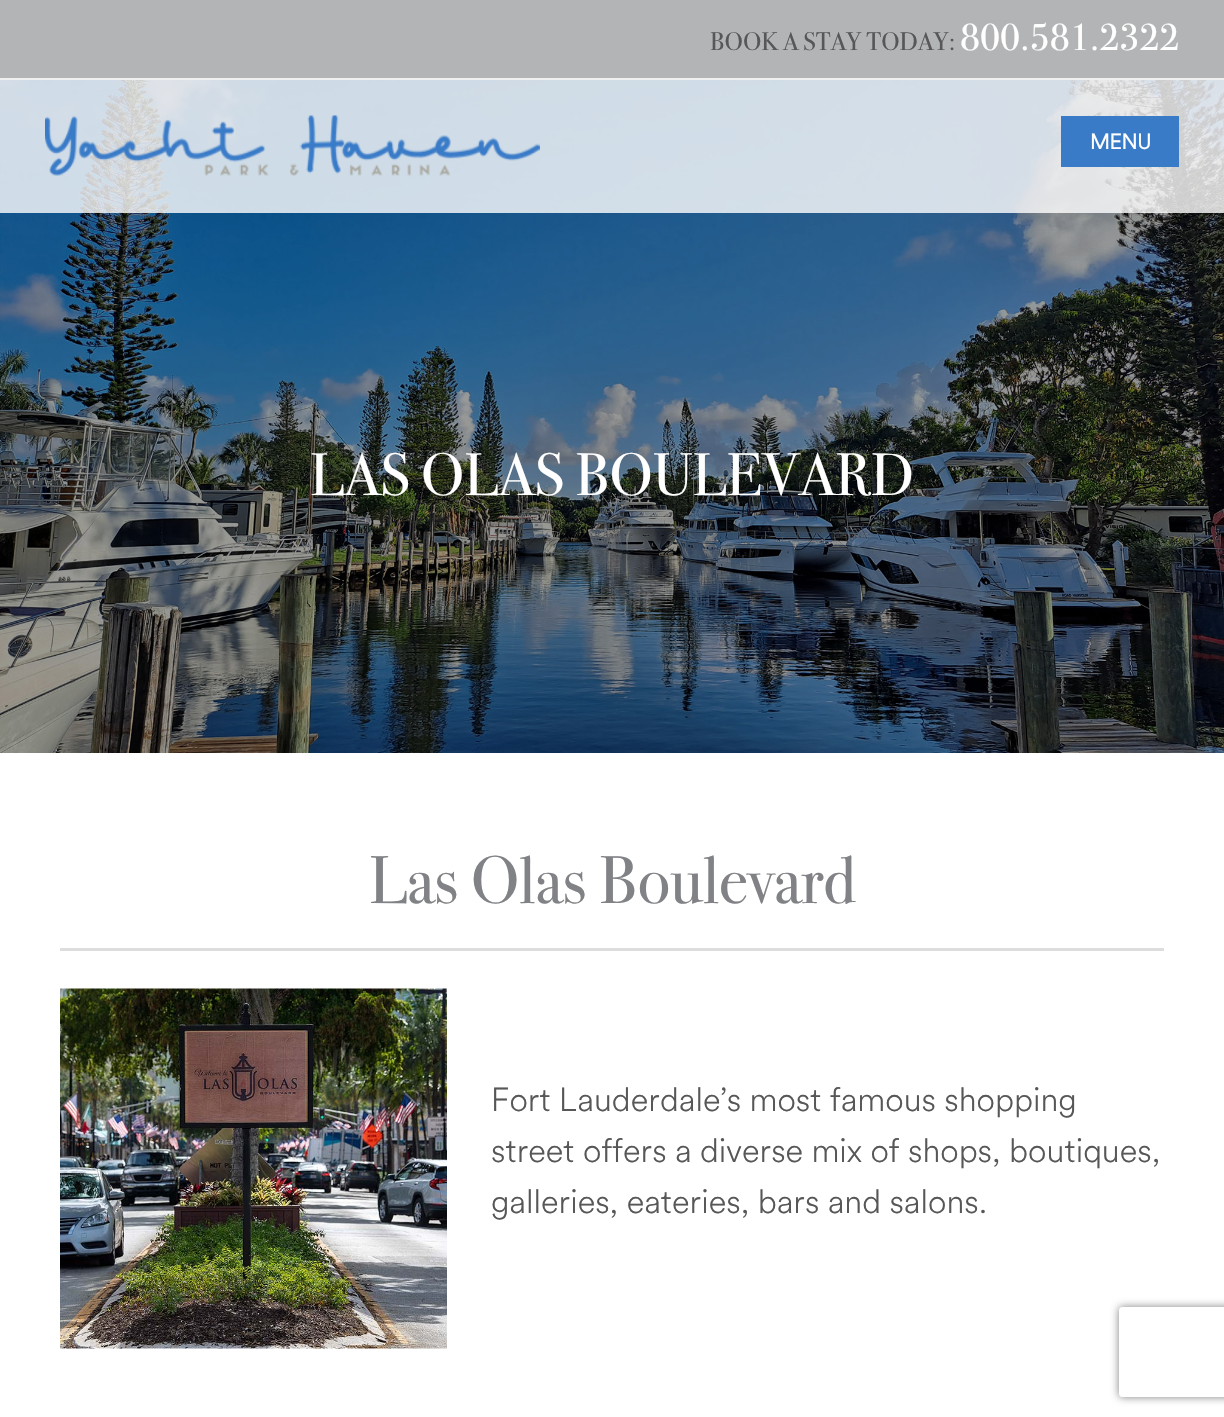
void draw(SkCanvas* canvas) {
    SkPaint paint;
    paint.setAntiAlias(true);
    auto face = [&](const char* family, int weight, float size, bool italic = false) {
        SkFontStyle style(weight, SkFontStyle::kNormal_Width,
            italic ? SkFontStyle::kItalic_Slant : SkFontStyle::kUpright_Slant);
        SkFont result(fontMgr->matchFamilyStyle(family, style), size);
        result.setSubpixel(true);
        return result;
    };
    auto write = [&](const char* s, float x, float y, const SkFont& font, SkColor color) {
        SkPaint ink(SkColor4f::FromColor(color));
        ink.setAntiAlias(true);
        canvas->drawString(s, x, y, font, ink);
    };
    auto block = [&](float x, float y, float w, float h, SkColor color) {
        SkPaint ink(SkColor4f::FromColor(color));
        ink.setAntiAlias(true);
        canvas->drawRect(SkRect::MakeXYWH(x, y, w, h), ink);
    };
    auto paste = [&](const char* path, float x, float y, float w, float h) {
        auto image = SkImages::DeferredFromEncodedData(SkData::MakeFromFileName(path));
        canvas->drawImageRect(image, SkRect::MakeXYWH(x, y, w, h), SkSamplingOptions());
    };
    canvas->clear(SK_ColorWHITE);
    block(0, 0, 1224, 80, SkColorSetRGB(179, 180, 182));
    auto kFont1 = face("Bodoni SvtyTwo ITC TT", 400, 25.5f);
    write("BOOK A STAY TODAY:", 710, 50, kFont1, SkColorSetRGB(87, 87, 88));
    auto kFont2 = face("Bodoni SvtyTwo ITC TT", 400, 37.5f);
    write("800.581.2322", 960, 50, kFont2, SK_ColorWHITE);
    paste("pic2.png", 0, 80, 1224, 673);
    block(0, 78, 1224, 135, SkColorSetARGB(204, 255, 255, 255));
    paste("pic1.png", 45, 115, 495, 61);
    block(1061, 116, 118, 51, SkColorSetRGB(58, 123, 200));
    auto kFont3 = face("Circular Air", 700, 21);
    write("MENU", 1090, 149, kFont3, SK_ColorWHITE);
    auto kFont4 = face("Bodoni SvtyTwo ITC TT", 400, 60);
    write("LAS OLAS BOULEVARD", 310, 495, kFont4, SK_ColorWHITE);
    block(60, 948, 1104, 3, SkColorSetRGB(221, 221, 221));
    auto kFont5 = face("Bodoni SvtyTwo ITC TT", 400, 67.5f);
    write("Las Olas Boulevard", 369, 903, kFont5, SkColorSetRGB(128, 130, 133));
    paste("pic3.png", 60, 988, 387, 361);
    auto kFont6 = face("Circular Air", 300, 33);
    write("Fort Lauderdale’s most famous shopping", 491, 1111, kFont6, SkColorSetRGB(87, 87, 88));
    write("street offers a diverse mix of shops, boutiques,", 491, 1162, kFont6, SkColorSetRGB(87, 87, 88));
    write("galleries, eateries, bars and salons.", 491, 1213, kFont6, SkColorSetRGB(87, 87, 88));
    canvas->save();
    canvas->clipPath(SkPathBuilder(SkPathFillType::kEvenOdd).moveTo(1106, 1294).lineTo(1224, 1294).lineTo(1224, 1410).lineTo(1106, 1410).close().moveTo(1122, 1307).lineTo(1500, 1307).cubicTo(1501.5f, 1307, 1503, 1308.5f, 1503, 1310).lineTo(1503, 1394).cubicTo(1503, 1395.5f, 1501.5f, 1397, 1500, 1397).lineTo(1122, 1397).cubicTo(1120.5f, 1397, 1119, 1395.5f, 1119, 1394).lineTo(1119, 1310).cubicTo(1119, 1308.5f, 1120.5f, 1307, 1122, 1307).close().detach(), true);
    paint.setColor(SkColorSetRGB(128, 128, 128));
    paint.setMaskFilter(SkMaskFilter::MakeBlur(kNormal_SkBlurStyle, 4));
    canvas->drawRoundRect(SkRect::MakeXYWH(1119, 1307, 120, 90), 3, 3, paint);
    paint.setMaskFilter(nullptr);
    canvas->restore();
}
